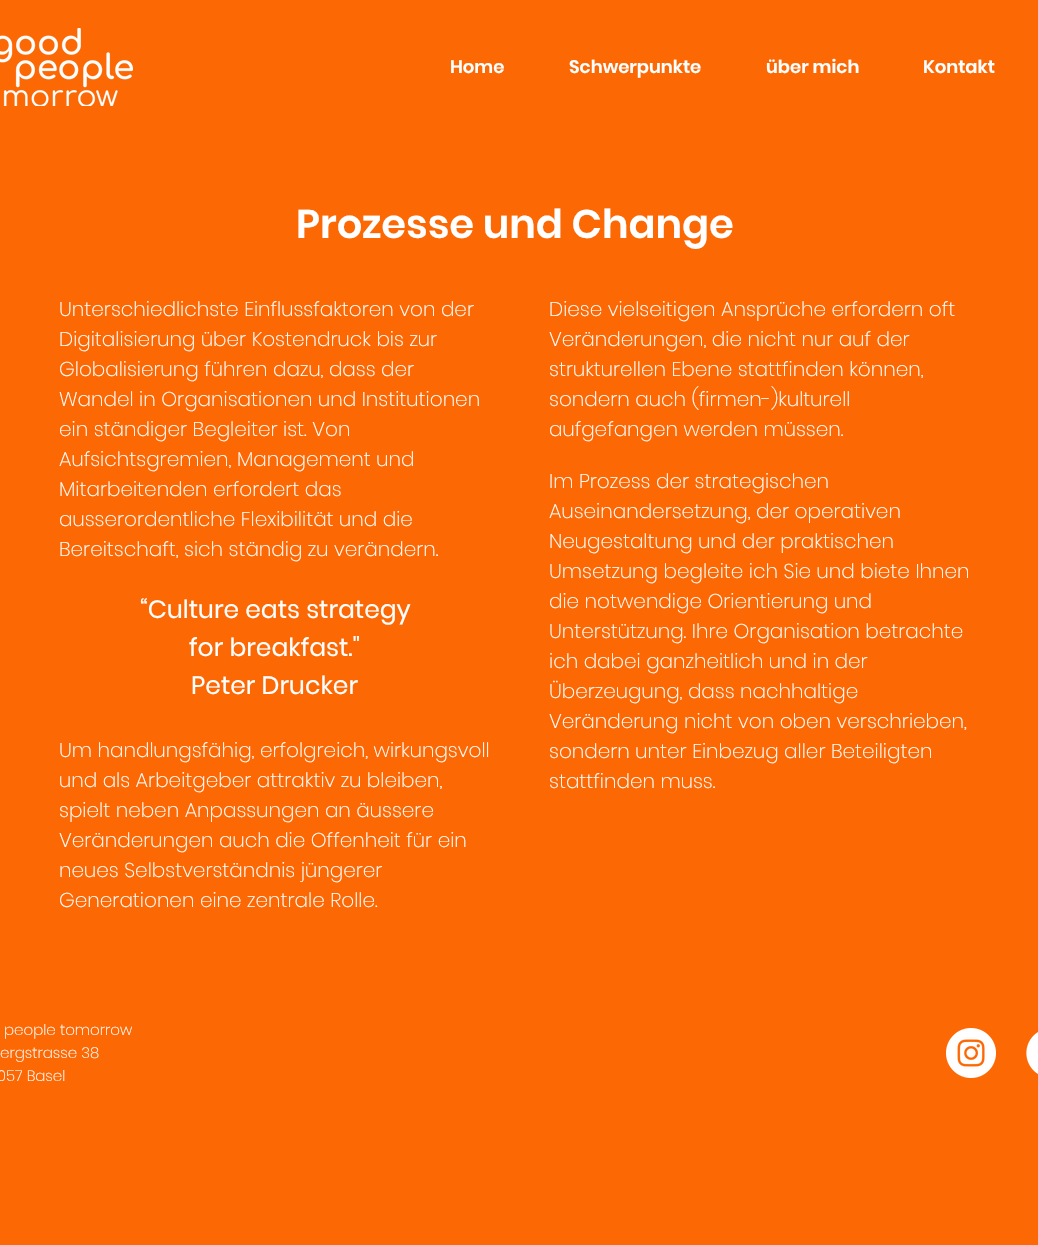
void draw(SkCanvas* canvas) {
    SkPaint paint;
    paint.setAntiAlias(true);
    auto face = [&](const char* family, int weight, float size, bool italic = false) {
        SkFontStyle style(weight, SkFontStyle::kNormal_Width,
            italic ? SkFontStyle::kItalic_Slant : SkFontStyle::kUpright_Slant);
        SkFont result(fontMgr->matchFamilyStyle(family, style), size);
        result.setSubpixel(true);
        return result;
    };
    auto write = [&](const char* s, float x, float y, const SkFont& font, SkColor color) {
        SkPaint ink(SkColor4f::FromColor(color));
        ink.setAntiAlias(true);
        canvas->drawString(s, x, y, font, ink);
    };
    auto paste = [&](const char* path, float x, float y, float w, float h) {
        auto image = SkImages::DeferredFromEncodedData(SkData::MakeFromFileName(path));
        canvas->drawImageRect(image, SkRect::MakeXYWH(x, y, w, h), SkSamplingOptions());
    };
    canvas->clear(SkColorSetRGB(252, 104, 4));
    paste("pic1.png", 0, 28, 133, 78);
    auto kFont1 = face("Poppins", 600, 18);
    write("Home", 450, 73, kFont1, SK_ColorWHITE);
    write("Schwerpunkte", 569, 73, kFont1, SK_ColorWHITE);
    write("über mich", 766, 73, kFont1, SK_ColorWHITE);
    write("Kontakt", 923, 73, kFont1, SK_ColorWHITE);
    auto kFont2 = face("Poppins", 600, 40);
    write("Prozesse und Change", 296, 238, kFont2, SK_ColorWHITE);
    auto kFont3 = face("Poppins", 200, 20);
    write("Unterschiedlichste Einflussfaktoren von der", 59, 316, kFont3, SK_ColorWHITE);
    write("Digitalisierung über Kostendruck bis zur", 59, 346, kFont3, SK_ColorWHITE);
    write("Globalisierung führen dazu, dass der", 59, 376, kFont3, SK_ColorWHITE);
    write("Wandel in Organisationen und Institutionen", 59, 406, kFont3, SK_ColorWHITE);
    write("ein ständiger Begleiter ist. Von", 59, 436, kFont3, SK_ColorWHITE);
    write("Aufsichtsgremien, Management und", 59, 466, kFont3, SK_ColorWHITE);
    write("Mitarbeitenden erfordert das", 59, 496, kFont3, SK_ColorWHITE);
    write("ausserordentliche Flexibilität und die", 59, 526, kFont3, SK_ColorWHITE);
    write("Bereitschaft, sich ständig zu verändern.", 59, 556, kFont3, SK_ColorWHITE);
    auto kFont4 = face("Poppins", 400, 25);
    write("“Culture eats strategy", 140, 618, kFont4, SK_ColorWHITE);
    write("for breakfast.\"", 189, 656, kFont4, SK_ColorWHITE);
    write("Peter Drucker", 191, 694, kFont4, SK_ColorWHITE);
    write("Um handlungsfähig, erfolgreich, wirkungsvoll", 59, 757, kFont3, SK_ColorWHITE);
    write("und als Arbeitgeber attraktiv zu bleiben,", 59, 787, kFont3, SK_ColorWHITE);
    write("spielt neben Anpassungen an äussere", 59, 817, kFont3, SK_ColorWHITE);
    write("Veränderungen auch die Offenheit für ein", 59, 847, kFont3, SK_ColorWHITE);
    write("neues Selbstverständnis jüngerer", 59, 877, kFont3, SK_ColorWHITE);
    write("Generationen eine zentrale Rolle.", 59, 907, kFont3, SK_ColorWHITE);
    write("Diese vielseitigen Ansprüche erfordern oft", 549, 316, kFont3, SK_ColorWHITE);
    write("Veränderungen, die nicht nur auf der", 549, 346, kFont3, SK_ColorWHITE);
    write("strukturellen Ebene stattfinden können,", 549, 376, kFont3, SK_ColorWHITE);
    write("sondern auch (firmen-)kulturell", 549, 406, kFont3, SK_ColorWHITE);
    write("aufgefangen werden müssen.", 549, 436, kFont3, SK_ColorWHITE);
    write("Im Prozess der strategischen", 549, 488, kFont3, SK_ColorWHITE);
    write("Auseinandersetzung, der operativen", 549, 518, kFont3, SK_ColorWHITE);
    write("Neugestaltung und der praktischen", 549, 548, kFont3, SK_ColorWHITE);
    write("Umsetzung begleite ich Sie und biete Ihnen", 549, 578, kFont3, SK_ColorWHITE);
    write("die notwendige Orientierung und", 549, 608, kFont3, SK_ColorWHITE);
    write("Unterstützung. Ihre Organisation betrachte", 549, 638, kFont3, SK_ColorWHITE);
    write("ich dabei ganzheitlich und in der", 549, 668, kFont3, SK_ColorWHITE);
    write("Überzeugung, dass nachhaltige", 549, 698, kFont3, SK_ColorWHITE);
    write("Veränderung nicht von oben verschrieben,", 549, 728, kFont3, SK_ColorWHITE);
    write("sondern unter Einbezug aller Beteiligten", 549, 758, kFont3, SK_ColorWHITE);
    write("stattfinden muss.", 549, 788, kFont3, SK_ColorWHITE);
    auto kFont5 = face("Poppins", 200, 15);
    write("people tomorrow", 4, 1035, kFont5, SK_ColorWHITE);
    write("ergstrasse 38", 0, 1058, kFont5, SK_ColorWHITE);
    write("057 Basel", -3, 1081, kFont5, SK_ColorWHITE);
    paste("pic2.png", 946, 1028, 50, 50);
    paste("pic3.png", 1026, 1032, 12, 42);
}
